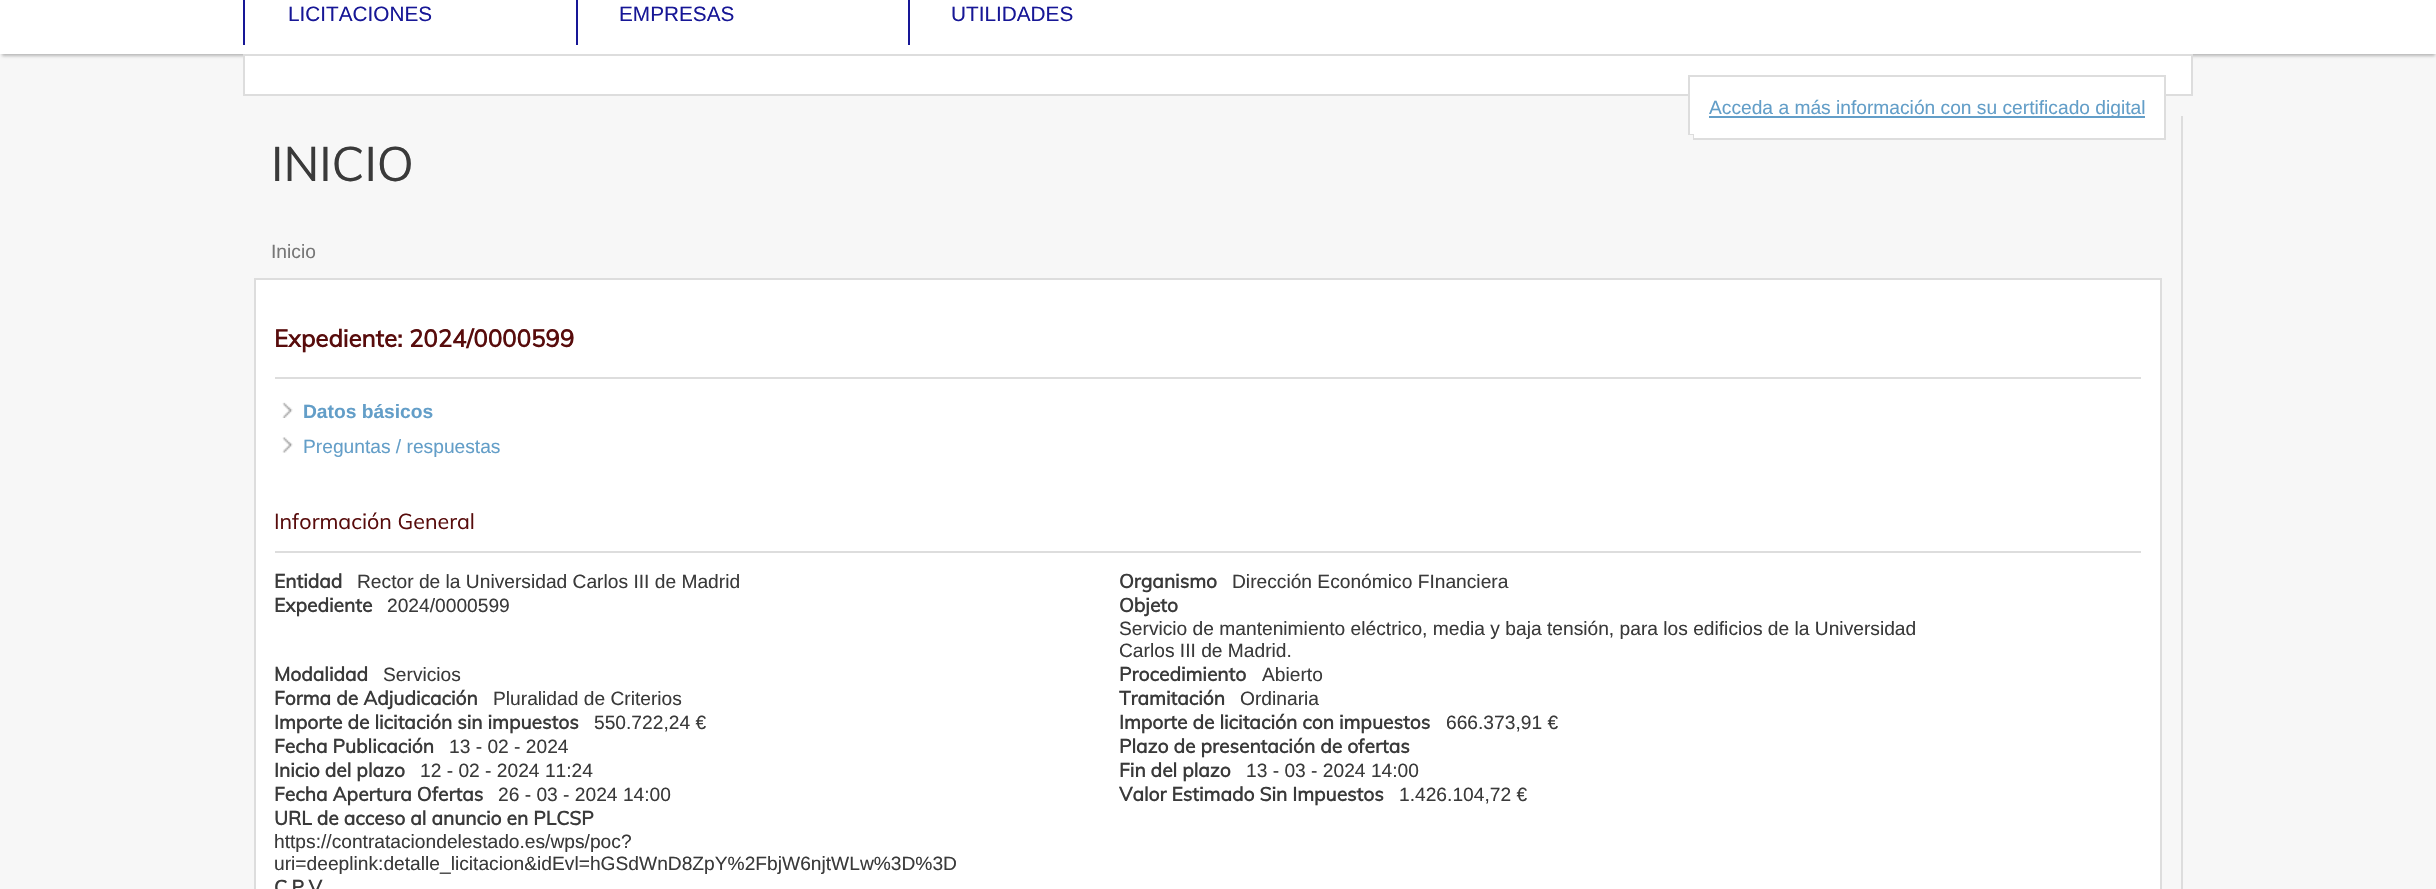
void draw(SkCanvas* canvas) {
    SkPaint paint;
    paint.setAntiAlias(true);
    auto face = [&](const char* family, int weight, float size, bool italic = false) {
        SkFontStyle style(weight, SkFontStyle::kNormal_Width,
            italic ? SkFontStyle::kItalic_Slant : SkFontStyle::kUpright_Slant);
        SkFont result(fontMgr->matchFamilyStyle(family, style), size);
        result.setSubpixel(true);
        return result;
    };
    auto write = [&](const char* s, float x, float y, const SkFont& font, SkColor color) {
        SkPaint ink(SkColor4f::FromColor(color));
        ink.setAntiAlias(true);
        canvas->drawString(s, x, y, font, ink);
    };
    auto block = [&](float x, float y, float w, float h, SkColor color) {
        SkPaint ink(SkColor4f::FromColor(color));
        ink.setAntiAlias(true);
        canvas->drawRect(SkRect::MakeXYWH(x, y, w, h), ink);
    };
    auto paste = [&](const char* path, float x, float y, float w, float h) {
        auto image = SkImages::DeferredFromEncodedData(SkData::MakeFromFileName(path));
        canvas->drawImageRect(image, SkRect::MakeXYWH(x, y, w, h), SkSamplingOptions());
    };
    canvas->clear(SkColorSetRGB(247, 247, 247));
    paint.setColor(SkColorSetRGB(183, 183, 183));
    paint.setMaskFilter(SkMaskFilter::MakeBlur(kNormal_SkBlurStyle, 1.5f));
    canvas->drawRect(SkRect::MakeXYWH(2, -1, 2433, 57), paint);
    paint.setMaskFilter(nullptr);
    block(0, 0, 2436, 54, SK_ColorWHITE);
    block(243, 0, 2, 45, SkColorSetRGB(23, 23, 150));
    auto kFont1 = face("Liberation Sans", 400, 20.75f);
    write("LICITACIONES", 288, 21, kFont1, SkColorSetRGB(23, 23, 150));
    block(576, 0, 2, 45, SkColorSetRGB(23, 23, 150));
    write("EMPRESAS", 619, 21, kFont1, SkColorSetRGB(23, 23, 150));
    block(908, 0, 2, 45, SkColorSetRGB(23, 23, 150));
    write("UTILIDADES", 951, 21, kFont1, SkColorSetRGB(23, 23, 150));
    paint.setColor(SK_ColorWHITE);
    canvas->drawRect(SkRect::MakeXYWH(244, 55, 1948, 40), paint);
    paint.setStyle(SkPaint::kStroke_Style);
    paint.setStrokeWidth(2);
    paint.setColor(SkColorSetRGB(221, 221, 221));
    canvas->drawRect(SkRect::MakeXYWH(244, 55, 1948, 40), paint);
    block(1690, 94, 474, 44, SK_ColorWHITE);
    canvas->drawRect(SkRect::MakeXYWH(1689, 76, 476, 63), paint);
    block(1709, 116, 436, 2, SkColorSetRGB(99, 158, 200));
    auto kFont2 = face("Liberation Sans", 400, 19.2f);
    write("Acceda a más información con su certificado digital", 1709, 114, kFont2, SkColorSetRGB(99, 158, 200));
    paint.setStyle(SkPaint::kFill_Style);
    canvas->drawPath(SkPathBuilder().moveTo(1689, 134).lineTo(1689, 135).lineTo(1692, 135).lineTo(1692, 139).lineTo(1694, 139).lineTo(1694, 134).close().detach(), paint);
    block(1688, 135, 5, 5, SkColorSetRGB(247, 247, 247));
    block(2181, 116, 2, 773, SkColorSetRGB(221, 221, 221));
    auto kFont3 = face("Muli", 400, 48);
    write("INICIO", 271, 181, kFont3, SkColorSetRGB(58, 58, 58));
    write("Inicio", 271, 258, kFont2, SkColorSetRGB(119, 119, 119));
    paint.setColor(SK_ColorWHITE);
    canvas->drawRect(SkRect::MakeXYWH(255, 279, 1906, 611), paint);
    paint.setStyle(SkPaint::kStroke_Style);
    paint.setColor(SkColorSetRGB(221, 221, 221));
    canvas->drawRect(SkRect::MakeXYWH(255, 279, 1906, 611), paint);
    block(275, 377, 1866, 2, SkColorSetRGB(221, 221, 221));
    auto kFont4 = face("Muli", 700, 24);
    write("Expediente: 2024/0000599", 274, 347, kFont4, SkColorSetRGB(88, 12, 12));
    paste("pic1.png", 282, 402, 11, 16);
    auto kFont5 = face("Liberation Sans", 700, 19.2f);
    write("Datos básicos", 303, 418, kFont5, SkColorSetRGB(99, 158, 200));
    paste("pic2.png", 282, 437, 11, 16);
    write("Preguntas / respuestas", 303, 453, kFont2, SkColorSetRGB(99, 158, 200));
    block(275, 551, 1866, 2, SkColorSetRGB(221, 221, 221));
    auto kFont6 = face("Muli", 400, 21.5f);
    write("Información General", 274, 529, kFont6, SkColorSetRGB(88, 12, 12));
    auto kFont7 = face("Muli", 700, 19.2f);
    write("Entidad", 274, 588, kFont7, SkColorSetRGB(58, 58, 58));
    write("Rector de la Universidad Carlos III de Madrid", 357, 588, kFont2, SkColorSetRGB(58, 58, 58));
    write("Organismo", 1119, 588, kFont7, SkColorSetRGB(58, 58, 58));
    write("Dirección Económico FInanciera", 1232, 588, kFont2, SkColorSetRGB(58, 58, 58));
    write("Expediente", 274, 612, kFont7, SkColorSetRGB(58, 58, 58));
    write("2024/0000599", 387, 612, kFont2, SkColorSetRGB(58, 58, 58));
    write("Objeto", 1119, 612, kFont7, SkColorSetRGB(58, 58, 58));
    write("Servicio de mantenimiento eléctrico, media y baja tensión, para los edificios de la Universidad", 1119, 635, kFont2, SkColorSetRGB(58, 58, 58));
    write("Carlos III de Madrid.", 1119, 657, kFont2, SkColorSetRGB(58, 58, 58));
    write("Modalidad", 274, 681, kFont7, SkColorSetRGB(58, 58, 58));
    write("Servicios", 383, 681, kFont2, SkColorSetRGB(58, 58, 58));
    write("Procedimiento", 1119, 681, kFont7, SkColorSetRGB(58, 58, 58));
    write("Abierto", 1262, 681, kFont2, SkColorSetRGB(58, 58, 58));
    write("Forma de Adjudicación", 274, 705, kFont7, SkColorSetRGB(58, 58, 58));
    write("Pluralidad de Criterios", 493, 705, kFont2, SkColorSetRGB(58, 58, 58));
    write("Tramitación", 1119, 705, kFont7, SkColorSetRGB(58, 58, 58));
    write("Ordinaria", 1240, 705, kFont2, SkColorSetRGB(58, 58, 58));
    write("Importe de licitación sin impuestos", 274, 729, kFont7, SkColorSetRGB(58, 58, 58));
    write("550.722,24 €", 594, 729, kFont2, SkColorSetRGB(58, 58, 58));
    write("Importe de licitación con impuestos", 1119, 729, kFont7, SkColorSetRGB(58, 58, 58));
    write("666.373,91 €", 1446, 729, kFont2, SkColorSetRGB(58, 58, 58));
    write("Fecha Publicación", 274, 753, kFont7, SkColorSetRGB(58, 58, 58));
    write("13 - 02 - 2024", 449, 753, kFont2, SkColorSetRGB(58, 58, 58));
    write("Plazo de presentación de ofertas", 1119, 753, kFont7, SkColorSetRGB(58, 58, 58));
    write("Inicio del plazo", 274, 777, kFont7, SkColorSetRGB(58, 58, 58));
    write("12 - 02 - 2024 11:24", 420, 777, kFont2, SkColorSetRGB(58, 58, 58));
    write("Fin del plazo", 1119, 777, kFont7, SkColorSetRGB(58, 58, 58));
    write("13 - 03 - 2024 14:00", 1246, 777, kFont2, SkColorSetRGB(58, 58, 58));
    write("Fecha Apertura Ofertas", 274, 801, kFont7, SkColorSetRGB(58, 58, 58));
    write("26 - 03 - 2024 14:00", 498, 801, kFont2, SkColorSetRGB(58, 58, 58));
    write("Valor Estimado Sin Impuestos", 1119, 801, kFont7, SkColorSetRGB(58, 58, 58));
    write("1.426.104,72 €", 1399, 801, kFont2, SkColorSetRGB(58, 58, 58));
    write("URL de acceso al anuncio en PLCSP", 274, 825, kFont7, SkColorSetRGB(58, 58, 58));
    write("https://contrataciondelestado.es/wps/poc?", 274, 848, kFont2, SkColorSetRGB(58, 58, 58));
    write("uri=deeplink:detalle_licitacion&idEvl=hGSdWnD8ZpY%2FbjW6njtWLw%3D%3D", 274, 870, kFont2, SkColorSetRGB(58, 58, 58));
    write("C.P.V", 274, 894, kFont7, SkColorSetRGB(58, 58, 58));
}
